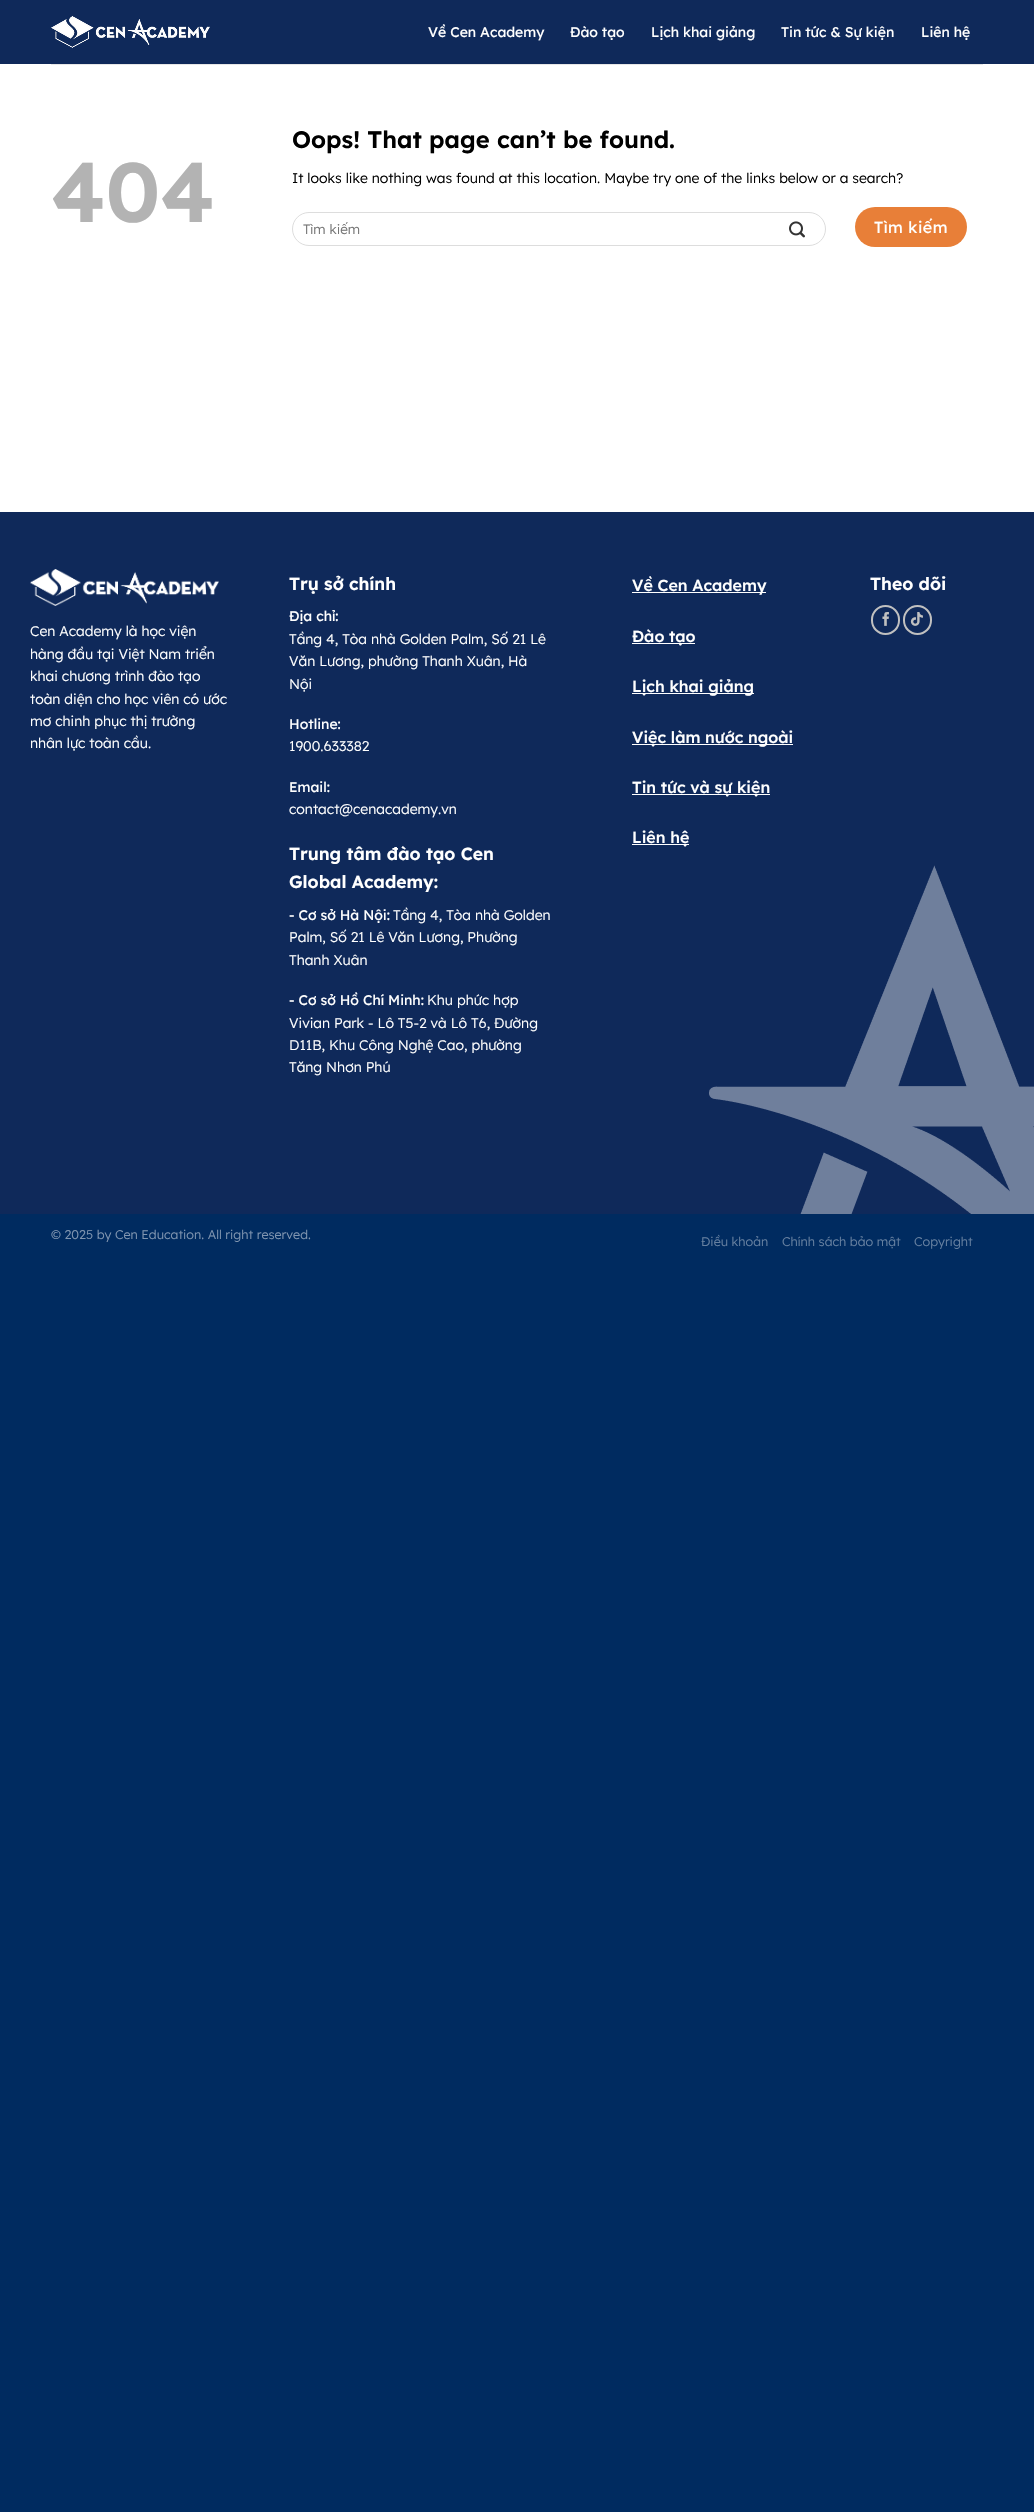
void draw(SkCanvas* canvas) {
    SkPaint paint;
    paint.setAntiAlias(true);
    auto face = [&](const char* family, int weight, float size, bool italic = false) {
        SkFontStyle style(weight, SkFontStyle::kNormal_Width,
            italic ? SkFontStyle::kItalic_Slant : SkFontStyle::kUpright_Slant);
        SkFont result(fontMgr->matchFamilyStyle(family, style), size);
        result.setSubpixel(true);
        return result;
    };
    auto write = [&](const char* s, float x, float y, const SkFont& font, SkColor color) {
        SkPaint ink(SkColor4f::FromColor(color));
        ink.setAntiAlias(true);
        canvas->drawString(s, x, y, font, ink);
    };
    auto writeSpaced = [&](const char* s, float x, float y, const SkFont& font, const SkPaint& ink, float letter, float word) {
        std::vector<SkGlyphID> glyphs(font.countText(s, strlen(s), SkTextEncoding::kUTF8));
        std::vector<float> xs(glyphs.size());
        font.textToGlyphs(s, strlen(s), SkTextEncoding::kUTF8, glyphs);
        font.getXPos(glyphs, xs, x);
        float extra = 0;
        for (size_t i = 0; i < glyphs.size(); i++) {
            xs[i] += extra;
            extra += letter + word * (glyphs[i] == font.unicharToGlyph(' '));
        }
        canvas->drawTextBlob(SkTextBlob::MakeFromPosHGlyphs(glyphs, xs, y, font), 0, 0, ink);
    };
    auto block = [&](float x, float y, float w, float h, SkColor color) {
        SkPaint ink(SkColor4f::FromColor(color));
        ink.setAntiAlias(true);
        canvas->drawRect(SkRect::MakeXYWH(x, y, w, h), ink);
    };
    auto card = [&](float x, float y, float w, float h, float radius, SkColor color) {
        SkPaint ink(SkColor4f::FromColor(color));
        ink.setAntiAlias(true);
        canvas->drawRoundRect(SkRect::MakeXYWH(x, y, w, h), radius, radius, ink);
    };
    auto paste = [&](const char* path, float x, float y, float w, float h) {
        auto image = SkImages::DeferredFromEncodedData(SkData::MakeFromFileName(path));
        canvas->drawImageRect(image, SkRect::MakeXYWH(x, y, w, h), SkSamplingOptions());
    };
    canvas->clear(SkColorSetRGB(0, 43, 96));
    block(0, 64, 1034, 448, SK_ColorWHITE);
    block(0, 0, 1034, 64, SkColorSetRGB(15, 41, 90));
    paste("pic1.png", 51, 16, 159, 32);
    auto kFont1 = face("Lexend", 400, 14);
    write("Về Cen Academy", 428, 37, kFont1, SK_ColorWHITE);
    write("Đào tạo", 570, 37, kFont1, SK_ColorWHITE);
    write("Lịch khai giảng", 651, 37, kFont1, SK_ColorWHITE);
    write("Tin tức & Sự kiện", 781, 37, kFont1, SK_ColorWHITE);
    write("Liên hệ", 921, 37, kFont1, SK_ColorWHITE);
    block(51, 64, 932, 1, SkColorSetRGB(230, 230, 230));
    auto kFont2 = face("Lexend", 600, 84);
    write("404", 51, 222, kFont2, SkColorSetRGB(179, 179, 179));
    auto kFont3 = face("Lexend", 600, 23.75f);
    write("Oops! That page can’t be found.", 292, 148, kFont3, SK_ColorBLACK);
    auto kFont4 = face("Lexend", 300, 14);
    write("It looks like nothing was found at this location. Maybe try one of the links below or a search?", 292, 183, kFont4, SK_ColorBLACK);
    paint.setStyle(SkPaint::kStroke_Style);
    paint.setStrokeWidth(1);
    paint.setColor(SkColorSetRGB(221, 221, 221));
    canvas->drawRoundRect(SkRect::MakeXYWH(292.5f, 212.5f, 533, 33), 16.5f, 16.5f, paint);
    auto kFont5 = face("Lexend", 300, 13.5f);
    write("Tìm kiếm", 303, 234, kFont5, SkColorSetRGB(117, 117, 117));
    paste("pic2.png", 789, 221, 16, 17);
    card(855, 207, 112, 40, 20, SkColorSetRGB(232, 127, 56));
    auto kFont6 = face("Lexend", 400, 16);
    paint.setStyle(SkPaint::kFill_Style);
    paint.setColor(SK_ColorWHITE);
    writeSpaced("Tìm kiếm", 874, 233, kFont6, paint, 0.5f, 0);
    block(0, 512, 1034, 702, SkColorSetRGB(15, 41, 90));
    paste("pic3.png", 30, 569, 189, 37);
    write("Cen Academy là học viện", 30, 636, kFont4, SK_ColorWHITE);
    write("hàng đầu tại Việt Nam triển", 30, 659, kFont4, SK_ColorWHITE);
    write("khai chương trình đào tạo", 30, 681, kFont4, SK_ColorWHITE);
    write("toàn diện cho học viên có ước", 30, 704, kFont4, SK_ColorWHITE);
    write("mơ chinh phục thị trường", 30, 726, kFont4, SK_ColorWHITE);
    write("nhân lực toàn cầu.", 30, 748, kFont4, SK_ColorWHITE);
    auto kFont7 = face("Lexend", 600, 17.5f);
    write("Trụ sở chính", 289, 590, kFont7, SK_ColorWHITE);
    write("Địa chỉ:", 289, 621, kFont1, SK_ColorWHITE);
    write("Tầng 4, Tòa nhà Golden Palm, Số 21 Lê", 289, 644, kFont4, SK_ColorWHITE);
    write("Văn Lương, phường Thanh Xuân, Hà", 289, 666, kFont4, SK_ColorWHITE);
    write("Nội", 289, 689, kFont4, SK_ColorWHITE);
    write("Hotline:", 289, 729, kFont1, SK_ColorWHITE);
    write("1900.633382", 289, 751, kFont4, SK_ColorWHITE);
    write("Email:", 289, 792, kFont1, SK_ColorWHITE);
    write("contact@cenacademy.vn", 289, 814, kFont4, SK_ColorWHITE);
    write("Trung tâm đào tạo Cen", 289, 860, kFont7, SK_ColorWHITE);
    write("Global Academy:", 289, 888, kFont7, SK_ColorWHITE);
    write("- Cơ sở Hà Nội:", 289, 920, kFont1, SK_ColorWHITE);
    write("Tầng 4, Tòa nhà Golden", 393, 920, kFont4, SK_ColorWHITE);
    write("Palm, Số 21 Lê Văn Lương, Phường", 289, 942, kFont4, SK_ColorWHITE);
    write("Thanh Xuân", 289, 965, kFont4, SK_ColorWHITE);
    write("- Cơ sở Hồ Chí Minh:", 289, 1005, kFont1, SK_ColorWHITE);
    write("Khu phức hợp", 427, 1005, kFont4, SK_ColorWHITE);
    write("Vivian Park - Lô T5-2 và Lô T6, Đường", 289, 1028, kFont4, SK_ColorWHITE);
    write("D11B, Khu Công Nghệ Cao, phường", 289, 1050, kFont4, SK_ColorWHITE);
    write("Tăng Nhơn Phú", 289, 1072, kFont4, SK_ColorWHITE);
    block(632, 592, 134, 1, SK_ColorWHITE);
    auto kFont8 = face("Lexend", 500, 16);
    write("Về Cen Academy", 632, 591, kFont8, SK_ColorWHITE);
    block(632, 643, 63, 1, SK_ColorWHITE);
    write("Đào tạo", 632, 642, kFont8, SK_ColorWHITE);
    block(632, 693, 122, 1, SK_ColorWHITE);
    write("Lịch khai giảng", 632, 692, kFont8, SK_ColorWHITE);
    block(632, 744, 161, 1, SK_ColorWHITE);
    write("Việc làm nước ngoài", 632, 743, kFont8, SK_ColorWHITE);
    block(632, 794, 138, 1, SK_ColorWHITE);
    write("Tin tức và sự kiện", 632, 793, kFont8, SK_ColorWHITE);
    block(632, 844, 57, 1, SK_ColorWHITE);
    write("Liên hệ", 632, 843, kFont8, SK_ColorWHITE);
    write("Theo dõi", 870, 590, kFont7, SK_ColorWHITE);
    paint.setStyle(SkPaint::kStroke_Style);
    paint.setStrokeWidth(2);
    paint.setColor(SkColorSetRGB(192, 192, 192));
    canvas->drawRoundRect(SkRect::MakeXYWH(872, 606, 27, 28), 13.5f, 13.5f, paint);
    paste("pic4.png", 882, 612, 7, 14);
    canvas->drawRoundRect(SkRect::MakeXYWH(904, 606, 27, 28), 13.5f, 13.5f, paint);
    paste("pic5.png", 910, 612, 13, 14);
    paste("pic6.png", 709, 865, 325, 349);
    auto kFont9 = face("Lexend", 300, 12.6f);
    write("© 2025 by Cen Education. All right reserved.", 51, 1239, kFont9, SkColorSetRGB(128, 149, 176));
    write("Điều khoản", 701, 1246, kFont9, SkColorSetRGB(102, 128, 160));
    write("Chính sách bảo mật", 782, 1246, kFont9, SkColorSetRGB(102, 128, 160));
    write("Copyright", 914, 1246, kFont9, SkColorSetRGB(102, 128, 160));
}
